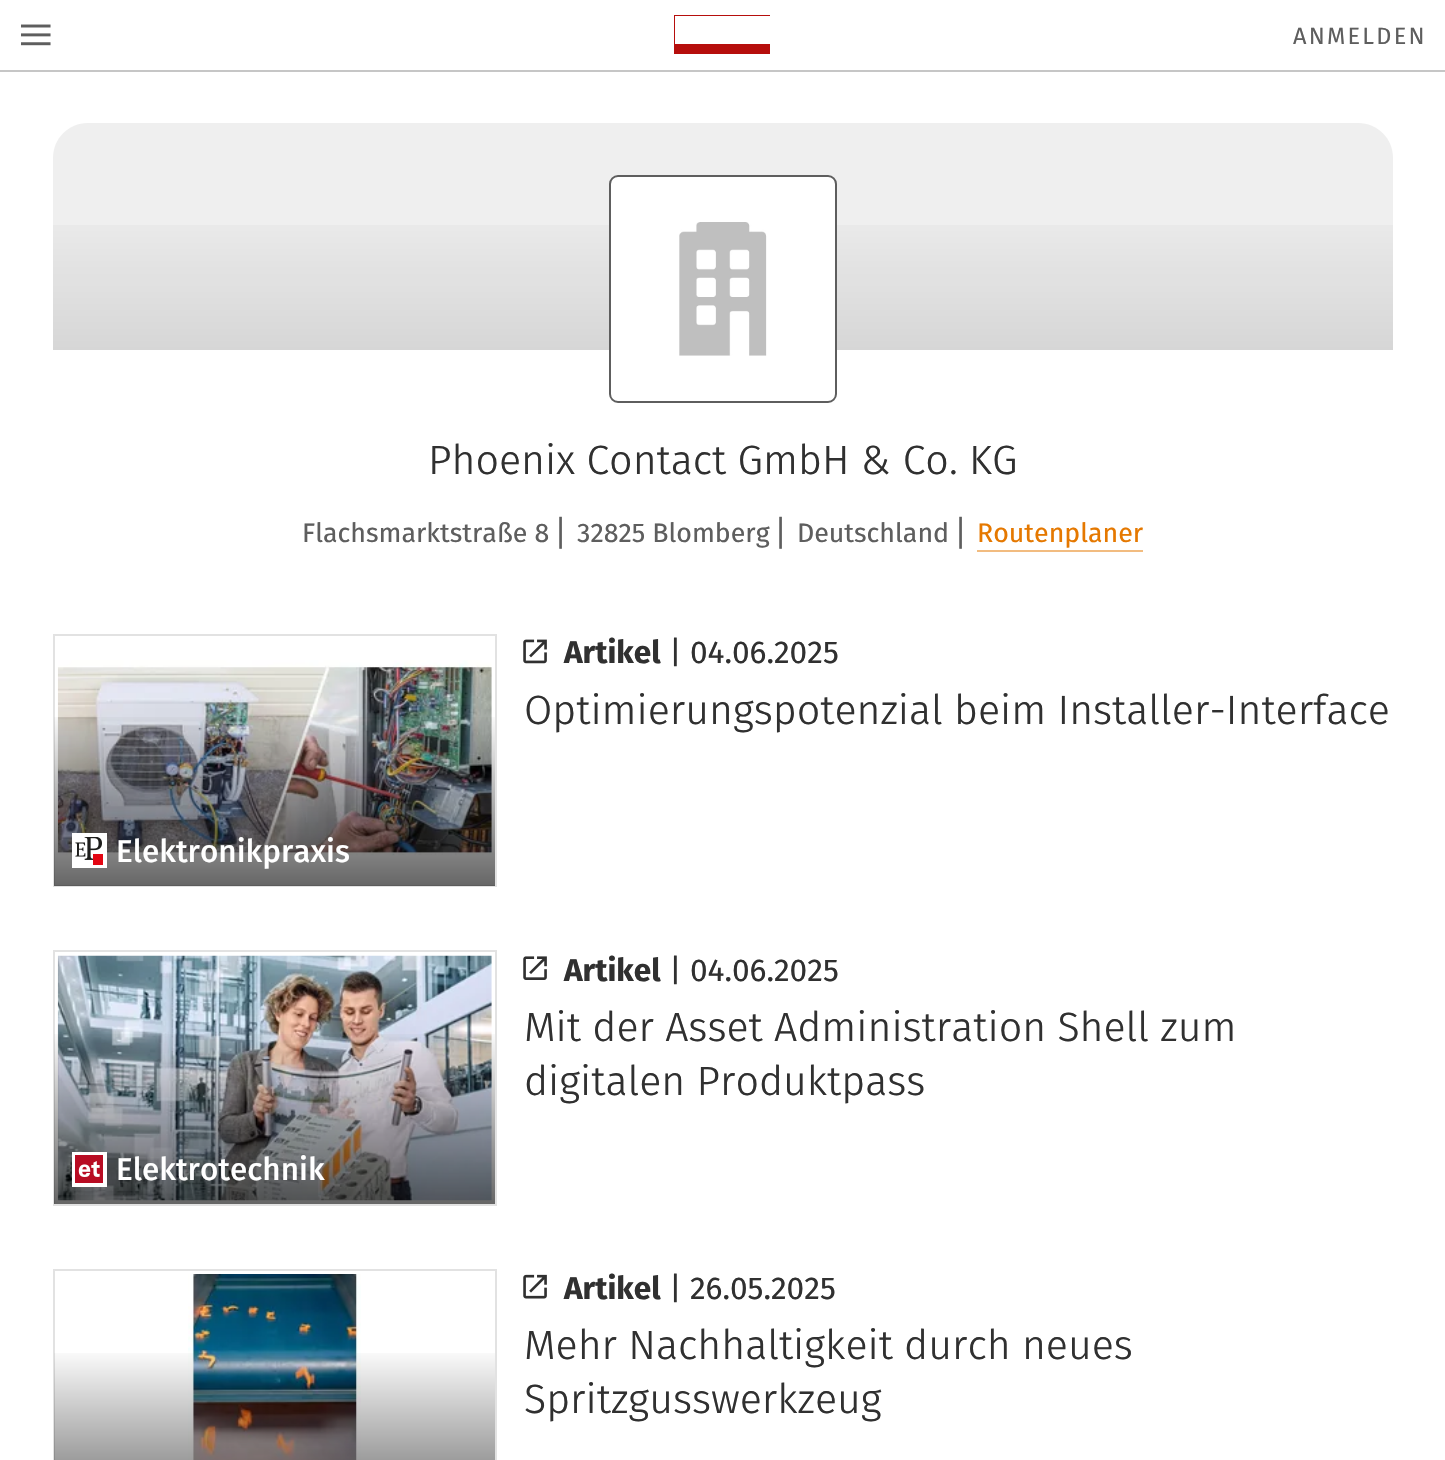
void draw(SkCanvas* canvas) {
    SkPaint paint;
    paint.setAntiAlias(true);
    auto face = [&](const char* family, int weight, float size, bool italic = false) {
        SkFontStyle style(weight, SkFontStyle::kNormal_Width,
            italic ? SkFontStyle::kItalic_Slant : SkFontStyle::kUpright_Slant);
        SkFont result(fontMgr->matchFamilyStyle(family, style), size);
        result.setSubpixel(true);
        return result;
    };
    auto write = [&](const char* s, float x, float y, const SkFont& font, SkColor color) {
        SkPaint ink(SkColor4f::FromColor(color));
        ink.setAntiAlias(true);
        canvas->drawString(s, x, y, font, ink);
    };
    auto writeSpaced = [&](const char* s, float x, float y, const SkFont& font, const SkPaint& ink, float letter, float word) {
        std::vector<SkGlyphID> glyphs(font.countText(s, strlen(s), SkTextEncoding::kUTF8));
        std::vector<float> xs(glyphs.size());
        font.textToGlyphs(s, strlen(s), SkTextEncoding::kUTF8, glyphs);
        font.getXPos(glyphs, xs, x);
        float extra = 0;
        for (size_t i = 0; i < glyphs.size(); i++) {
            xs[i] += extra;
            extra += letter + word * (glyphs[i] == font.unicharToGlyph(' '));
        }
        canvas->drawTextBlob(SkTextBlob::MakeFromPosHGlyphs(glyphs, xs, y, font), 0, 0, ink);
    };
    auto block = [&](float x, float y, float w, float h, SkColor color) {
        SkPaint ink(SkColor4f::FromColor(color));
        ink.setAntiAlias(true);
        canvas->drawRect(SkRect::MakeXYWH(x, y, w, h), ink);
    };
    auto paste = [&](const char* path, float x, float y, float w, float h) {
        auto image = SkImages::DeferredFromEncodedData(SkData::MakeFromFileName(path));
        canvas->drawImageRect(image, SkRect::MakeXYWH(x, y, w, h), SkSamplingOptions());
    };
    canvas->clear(SK_ColorWHITE);
    block(0, 70, 1445, 2, SkColorSetRGB(198, 198, 198));
    paste("pic1.png", 21, 24, 30, 22);
    block(674, 15, 96, 39, SkColorSetRGB(182, 14, 12));
    block(675, 16, 95, 28, SK_ColorWHITE);
    auto kFont1 = face("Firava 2", 400, 23.5f);
    paint.setColor(SkColorSetRGB(94, 94, 94));
    writeSpaced("ANMELDEN", 1293, 44, kFont1, paint, 2.25f, 0);
    paint.setColor(SkColorSetRGB(239, 239, 239));
    canvas->drawPath(SkPathBuilder().moveTo(88, 123).lineTo(1358, 123).cubicTo(1377.5f, 123, 1393, 138.5f, 1393, 158).lineTo(1393, 350).lineTo(53, 350).lineTo(53, 158).cubicTo(53, 138.5f, 68.5f, 123, 88, 123).close().detach(), paint);
    {
        const SkColor colors[] = {SkColorSetARGB(26, 0, 0, 0), SkColorSetARGB(0, 0, 0, 0)};
        const float stops[] = {0, 0.7f};
        const SkPoint ends[] = {{723, 350}, {723, 123}};
        paint.setShader(SkGradientShader::MakeLinear(ends, colors, stops, 2, SkTileMode::kClamp));
        paint.setAlpha(255);
    }
    canvas->drawRect(SkRect::MakeXYWH(53, 225, 1340, 125), paint);
    paint.setShader(nullptr);
    paint.setColor(SK_ColorWHITE);
    canvas->drawRoundRect(SkRect::MakeXYWH(610, 176, 226, 226), 8, 8, paint);
    paint.setStyle(SkPaint::kStroke_Style);
    paint.setStrokeWidth(2);
    paint.setColor(SkColorSetRGB(94, 94, 94));
    canvas->drawRoundRect(SkRect::MakeXYWH(610, 176, 226, 226), 8, 8, paint);
    paste("pic2.png", 679, 222, 88, 134);
    auto kFont2 = face("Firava", 300, 40.95f);
    write("Phoenix Contact GmbH & Co. KG", 428, 474, kFont2, SkColorSetRGB(48, 48, 48));
    auto kFont3 = face("Firava", 400, 26.75f);
    write("Flachsmarktstraße 8", 302, 542, kFont3, SkColorSetRGB(94, 94, 94));
    auto kFont4 = face("DejaVu Sans", 400, 26.75f);
    write("⎢", 557, 542, kFont4, SkColorSetRGB(94, 94, 94));
    write("32825 Blomberg", 577, 542, kFont3, SkColorSetRGB(94, 94, 94));
    write("⎢", 777, 542, kFont4, SkColorSetRGB(94, 94, 94));
    write("Deutschland", 797, 542, kFont3, SkColorSetRGB(94, 94, 94));
    write("⎢", 957, 542, kFont4, SkColorSetRGB(94, 94, 94));
    write("Routenplaner", 977, 542, kFont3, SkColorSetRGB(229, 120, 0));
    block(977, 550, 166, 2, SkColorSetRGB(242, 188, 128));
    paste("pic3.png", 523, 639, 24, 25);
    auto kFont5 = face("Firava", 700, 31.5f);
    write("Artikel", 564, 663, kFont5, SkColorSetRGB(48, 48, 48));
    auto kFont6 = face("Firava", 400, 31.5f);
    write("| 04.06.2025", 669, 663, kFont6, SkColorSetRGB(48, 48, 48));
    write("Optimierungspotenzial beim Installer-Interface", 524, 724, kFont2, SkColorSetRGB(48, 48, 48));
    paint.setColor(SkColorSetRGB(226, 226, 226));
    canvas->drawRect(SkRect::MakeXYWH(54, 635, 442, 251), paint);
    paste("pic4.png", 57, 660, 435, 196);
    paint.setStyle(SkPaint::kFill_Style);
    {
        const SkColor colors[] = {SkColorSetARGB(153, 0, 0, 0), SkColorSetARGB(0, 0, 0, 0)};
        const float stops[] = {0, 0.7f};
        const SkPoint ends[] = {{275, 886}, {275, 635}};
        paint.setShader(SkGradientShader::MakeLinear(ends, colors, stops, 2, SkTileMode::kClamp));
        paint.setAlpha(255);
    }
    canvas->drawRect(SkRect::MakeXYWH(54, 717, 441, 169), paint);
    block(72, 833, 35, 35, SK_ColorWHITE);
    paste("pic5.png", 75, 837, 28, 28);
    auto kFont7 = face("Firava", 500, 31.5f);
    write("Elektronikpraxis", 116, 862, kFont7, SK_ColorWHITE);
    paste("pic6.png", 523, 956, 24, 24);
    write("Artikel", 564, 981, kFont5, SkColorSetRGB(48, 48, 48));
    write("| 04.06.2025", 669, 981, kFont6, SkColorSetRGB(48, 48, 48));
    write("Mit der Asset Administration Shell zum", 524, 1041, kFont2, SkColorSetRGB(48, 48, 48));
    write("digitalen Produktpass", 524, 1095, kFont2, SkColorSetRGB(48, 48, 48));
    paint.setStyle(SkPaint::kStroke_Style);
    paint.setShader(nullptr);
    paint.setColor(SkColorSetRGB(226, 226, 226));
    canvas->drawRect(SkRect::MakeXYWH(54, 951, 442, 254), paint);
    paste("pic7.png", 57, 955, 435, 246);
    paint.setStyle(SkPaint::kFill_Style);
    {
        const SkColor colors[] = {SkColorSetARGB(153, 0, 0, 0), SkColorSetARGB(0, 0, 0, 0)};
        const float stops[] = {0, 0.7f};
        const SkPoint ends[] = {{275, 1204}, {275, 952}};
        paint.setShader(SkGradientShader::MakeLinear(ends, colors, stops, 2, SkTileMode::kClamp));
        paint.setAlpha(255);
    }
    canvas->drawRect(SkRect::MakeXYWH(54, 1034, 441, 170), paint);
    block(72, 1152, 35, 35, SK_ColorWHITE);
    paste("pic8.png", 75, 1155, 28, 28);
    write("Elektrotechnik", 116, 1180, kFont7, SK_ColorWHITE);
    paint.setStyle(SkPaint::kStroke_Style);
    paint.setShader(nullptr);
    paint.setColor(SkColorSetRGB(226, 226, 226));
    canvas->drawRect(SkRect::MakeXYWH(54, 1270, 442, 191), paint);
    paste("pic9.png", 188, 1274, 173, 186);
    paint.setStyle(SkPaint::kFill_Style);
    {
        const SkColor colors[] = {SkColorSetARGB(153, 0, 0, 0), SkColorSetARGB(0, 0, 0, 0)};
        const float stops[] = {0, 0.7f};
        const SkPoint ends[] = {{275, 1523}, {275, 1271}};
        paint.setShader(SkGradientShader::MakeLinear(ends, colors, stops, 2, SkTileMode::kClamp));
        paint.setAlpha(255);
    }
    canvas->drawRect(SkRect::MakeXYWH(54, 1353, 441, 107), paint);
    paste("pic10.png", 523, 1274, 24, 25);
    write("Artikel", 564, 1299, kFont5, SkColorSetRGB(48, 48, 48));
    write("| 26.05.2025", 669, 1299, kFont6, SkColorSetRGB(48, 48, 48));
    write("Mehr Nachhaltigkeit durch neues", 524, 1359, kFont2, SkColorSetRGB(48, 48, 48));
    write("Spritzgusswerkzeug", 524, 1413, kFont2, SkColorSetRGB(48, 48, 48));
}
